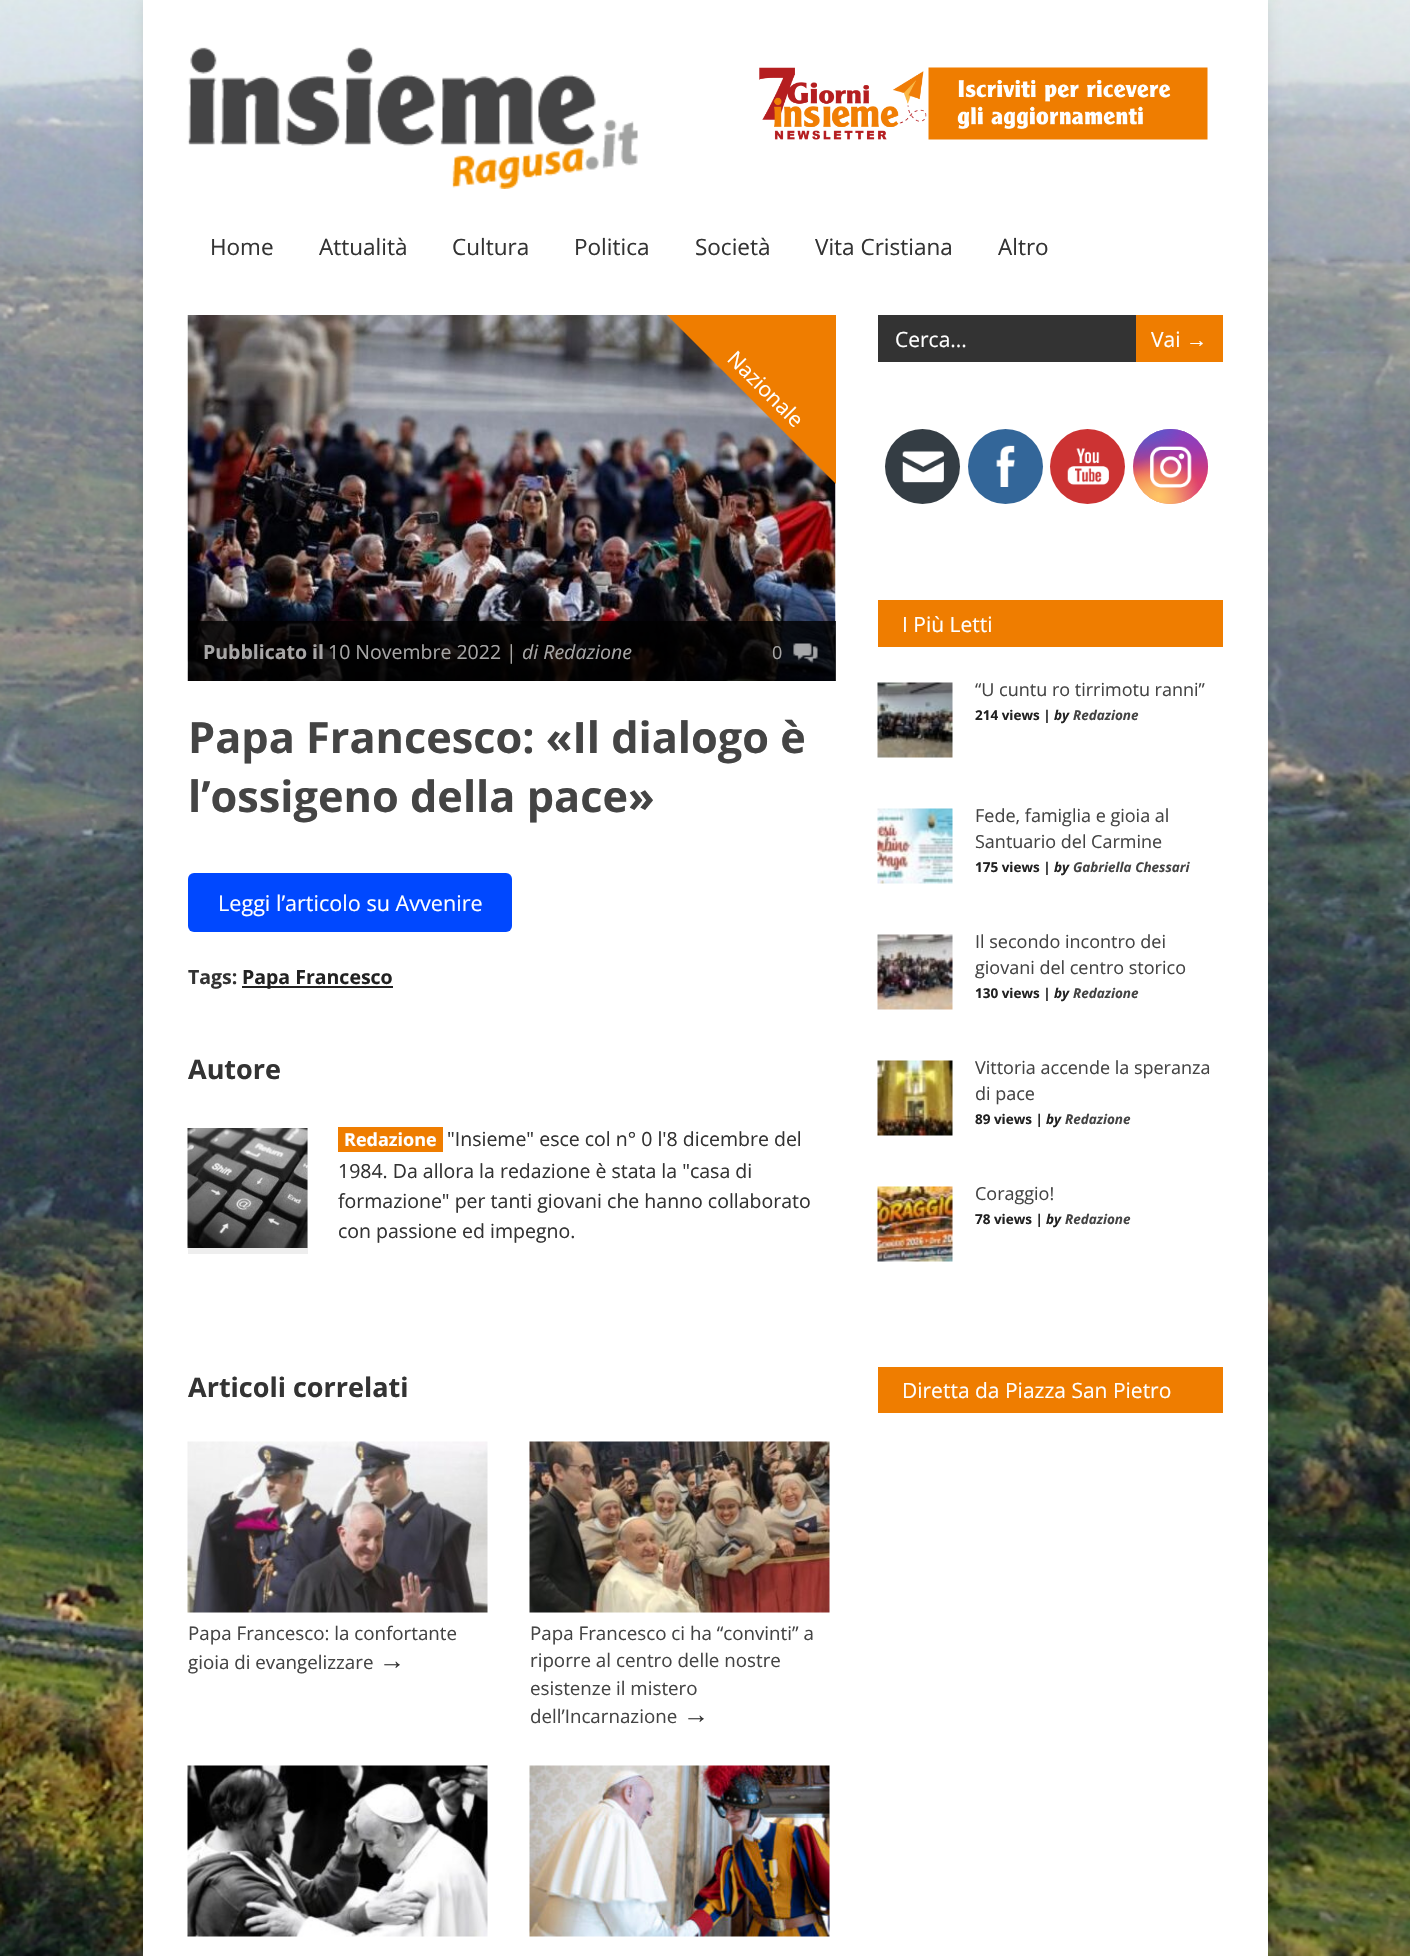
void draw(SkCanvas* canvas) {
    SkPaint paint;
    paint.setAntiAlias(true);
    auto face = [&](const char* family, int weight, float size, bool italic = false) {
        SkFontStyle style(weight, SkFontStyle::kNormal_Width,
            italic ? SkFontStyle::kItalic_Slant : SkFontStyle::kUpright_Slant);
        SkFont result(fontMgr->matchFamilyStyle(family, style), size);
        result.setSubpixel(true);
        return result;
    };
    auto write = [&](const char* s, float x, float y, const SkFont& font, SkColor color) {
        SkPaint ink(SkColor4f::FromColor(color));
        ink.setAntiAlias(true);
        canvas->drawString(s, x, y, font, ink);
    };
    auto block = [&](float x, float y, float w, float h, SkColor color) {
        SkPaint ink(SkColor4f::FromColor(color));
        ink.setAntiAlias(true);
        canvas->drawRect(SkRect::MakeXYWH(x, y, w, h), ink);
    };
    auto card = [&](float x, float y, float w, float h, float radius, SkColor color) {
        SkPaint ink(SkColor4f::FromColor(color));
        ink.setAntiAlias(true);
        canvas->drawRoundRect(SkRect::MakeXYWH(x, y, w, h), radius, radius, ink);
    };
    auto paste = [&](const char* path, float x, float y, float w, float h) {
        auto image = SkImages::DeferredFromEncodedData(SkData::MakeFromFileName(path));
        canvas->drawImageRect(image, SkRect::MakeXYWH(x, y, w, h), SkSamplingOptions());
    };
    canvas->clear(SK_ColorWHITE);
    paste("pic1.png", 0, 0, 1410, 1956);
    paint.setColor(SkColorSetARGB(26, 0, 0, 0));
    paint.setMaskFilter(SkMaskFilter::MakeBlur(kNormal_SkBlurStyle, 7.5f));
    canvas->drawRect(SkRect::MakeXYWH(143, 0, 1125, 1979), paint);
    paint.setMaskFilter(nullptr);
    block(143, 0, 1125, 1956, SK_ColorWHITE);
    paste("pic2.png", 187, 47, 451, 142);
    paste("pic3.png", 759, 67, 449, 73);
    auto kFont1 = face("Open Sans", 400, 22.5f);
    write("Home", 210, 255, kFont1, SkColorSetRGB(51, 51, 51));
    write("Attualità", 319, 255, kFont1, SkColorSetRGB(51, 51, 51));
    write("Cultura", 452, 255, kFont1, SkColorSetRGB(51, 51, 51));
    write("Politica", 574, 255, kFont1, SkColorSetRGB(51, 51, 51));
    write("Società", 695, 255, kFont1, SkColorSetRGB(51, 51, 51));
    write("Vita Cristiana", 815, 255, kFont1, SkColorSetRGB(51, 51, 51));
    write("Altro", 998, 255, kFont1, SkColorSetRGB(51, 51, 51));
    paste("pic4.png", 187, 315, 649, 366);
    canvas->save();
    canvas->clipRect(SkRect::MakeXYWH(188, 315, 648, 366));
    paint.setColor(SkColorSetRGB(239, 125, 0));
    canvas->drawPath(SkPathBuilder().moveTo(744, 198).lineTo(956, 410).lineTo(859, 507).lineTo(647, 295).close().detach(), paint);
    canvas->restore();
    auto kFont2 = face("Open Sans", 400, 21);
    canvas->save();
    canvas->rotate(45, 726, 360);
    write("Nazionale", 726, 360, kFont2, SK_ColorWHITE);
    canvas->restore();
    block(188, 621, 648, 60, SkColorSetARGB(204, 0, 0, 0));
    auto kFont3 = face("Open Sans", 700, 19.5f);
    write("Pubblicato il", 203, 659, kFont3, SkColorSetRGB(167, 166, 166));
    auto kFont4 = face("Open Sans", 400, 19.5f);
    write("10 Novembre 2022 |", 328, 659, kFont4, SkColorSetRGB(167, 166, 166));
    auto kFont5 = face("Open Sans", 400, 19.5f, true);
    write("di Redazione", 522, 659, kFont5, SkColorSetRGB(167, 166, 166));
    paste("pic5.png", 793, 643, 25, 21);
    auto kFont6 = face("Open Sans", 400, 18);
    write("0", 772, 659, kFont6, SkColorSetRGB(167, 166, 166));
    auto kFont7 = face("Open Sans", 700, 43.25f);
    write("Papa Francesco: «Il dialogo è", 188, 753, kFont7, SkColorSetRGB(68, 68, 68));
    write("l’ossigeno della pace»", 188, 812, kFont7, SkColorSetRGB(68, 68, 68));
    card(188, 873, 324, 59, 6, SkColorSetRGB(0, 72, 255));
    auto kFont8 = face("Open Sans", 400, 21.6f);
    write("Leggi l’articolo su Avvenire", 218, 911, kFont8, SK_ColorWHITE);
    write("Tags:", 188, 984, kFont3, SkColorSetRGB(51, 51, 51));
    block(242, 986, 151, 2, SkColorSetRGB(34, 34, 34));
    write("Papa Francesco", 242, 984, kFont3, SkColorSetRGB(34, 34, 34));
    auto kFont9 = face("Open Sans", 700, 27);
    write("Autore", 188, 1079, kFont9, SkColorSetRGB(51, 51, 51));
    block(188, 1128, 120, 126, SkColorSetRGB(238, 238, 238));
    paste("pic6.png", 187, 1128, 121, 120);
    block(338, 1127, 105, 25, SkColorSetRGB(239, 125, 0));
    auto kFont10 = face("Open Sans", 700, 18);
    write("Redazione", 344, 1146, kFont10, SK_ColorWHITE);
    write("\"Insieme\" esce col n° 0 l'8 dicembre del", 447, 1146, kFont4, SkColorSetRGB(51, 51, 51));
    write("1984. Da allora la redazione è stata la \"casa di", 338, 1178, kFont4, SkColorSetRGB(51, 51, 51));
    write("formazione\" per tanti giovani che hanno collaborato", 338, 1208, kFont4, SkColorSetRGB(51, 51, 51));
    write("con passione ed impegno.", 338, 1238, kFont4, SkColorSetRGB(51, 51, 51));
    write("Articoli correlati", 188, 1397, kFont9, SkColorSetRGB(51, 51, 51));
    paste("pic7.png", 187, 1441, 301, 172);
    auto kFont11 = face("Open Sans", 400, 18.75f);
    write("Papa Francesco: la confortante", 188, 1640, kFont11, SkColorSetRGB(68, 68, 68));
    write("gioia di evangelizzare", 188, 1669, kFont11, SkColorSetRGB(68, 68, 68));
    auto kFont12 = face("Liberation Sans", 400, 26);
    write("→", 379, 1669, kFont12, SkColorSetRGB(51, 51, 51));
    paste("pic8.png", 529, 1441, 301, 172);
    write("Papa Francesco ci ha “convinti” a", 530, 1640, kFont11, SkColorSetRGB(68, 68, 68));
    write("riporre al centro delle nostre", 530, 1667, kFont11, SkColorSetRGB(68, 68, 68));
    write("esistenze il mistero", 530, 1695, kFont11, SkColorSetRGB(68, 68, 68));
    write("dell’Incarnazione", 530, 1723, kFont11, SkColorSetRGB(68, 68, 68));
    write("→", 683, 1723, kFont12, SkColorSetRGB(51, 51, 51));
    paste("pic9.png", 187, 1765, 301, 172);
    paste("pic10.png", 529, 1765, 301, 172);
    block(878, 315, 258, 47, SkColorSetRGB(51, 51, 51));
    write("Cerca...", 895, 347, kFont2, SK_ColorWHITE);
    block(1136, 315, 87, 47, SkColorSetRGB(239, 125, 0));
    write("Vai", 1151, 347, kFont2, SK_ColorWHITE);
    auto kFont13 = face("Liberation Sans", 400, 21);
    write("→", 1186, 347, kFont13, SK_ColorWHITE);
    paint.setColor(SkColorSetRGB(52, 61, 68));
    canvas->drawCircle(922.5f, 466.5f, 37.5f, paint);
    paste("pic11.png", 902, 450, 42, 33);
    paint.setColor(SkColorSetRGB(51, 102, 153));
    canvas->drawCircle(1005.5f, 466.5f, 37.5f, paint);
    paste("pic12.png", 996, 445, 19, 42);
    paint.setColor(SkColorSetRGB(204, 51, 51));
    canvas->drawCircle(1087.5f, 466.5f, 37.5f, paint);
    paste("pic13.png", 1067, 448, 42, 37);
    {
        const SkColor colors[] = {SkColorSetRGB(101, 89, 202), SkColorSetRGB(188, 49, 143), SkColorSetRGB(227, 63, 95), SkColorSetRGB(247, 118, 56), SkColorSetRGB(254, 198, 109)};
        const float stops[] = {0, 0.3f, 0.5f, 0.7f, 1};
        const SkPoint ends[] = {{1170, 429}, {1170, 504}};
        paint.setShader(SkGradientShader::MakeLinear(ends, colors, stops, 5, SkTileMode::kClamp));
        paint.setAlpha(255);
    }
    canvas->drawCircle(1170.5f, 466.5f, 37.5f, paint);
    {
        const SkColor colors[] = {SkColorSetRGB(217, 49, 122), SkColorSetARGB(0, 217, 49, 122)};
        const float stops[] = {0, 1};
        paint.setShader(SkGradientShader::MakeRadial({1208, 504}, 106, colors, stops, 2, SkTileMode::kClamp));
        paint.setAlpha(255);
    }
    canvas->drawCircle(1170.5f, 466.5f, 37.5f, paint);
    {
        const SkColor colors[] = {SkColorSetRGB(137, 61, 194), SkColorSetARGB(0, 137, 61, 194)};
        const float stops[] = {0, 0.5f};
        SkMatrix m = SkMatrix::Translate(1178, 414).preScale(64, 127);
        paint.setShader(SkGradientShader::MakeRadial({0, 0}, 1, colors, stops, 2, SkTileMode::kClamp, 0, &m));
        paint.setAlpha(255);
    }
    canvas->drawCircle(1170.5f, 466.5f, 37.5f, paint);
    {
        const SkColor colors[] = {SkColorSetRGB(137, 61, 194), SkColorSetARGB(0, 137, 61, 194)};
        const float stops[] = {0, 0.5f};
        paint.setShader(SkGradientShader::MakeRadial({1208, 429}, 106, colors, stops, 2, SkTileMode::kClamp));
        paint.setAlpha(255);
    }
    canvas->drawCircle(1170.5f, 466.5f, 37.5f, paint);
    {
        const SkColor colors[] = {SkColorSetRGB(82, 88, 207), SkColorSetARGB(0, 82, 88, 207)};
        const float stops[] = {0, 0.5f};
        SkMatrix m = SkMatrix::Translate(1148, 392).preScale(85, 159);
        paint.setShader(SkGradientShader::MakeRadial({0, 0}, 1, colors, stops, 2, SkTileMode::kClamp, 0, &m));
        paint.setAlpha(255);
    }
    canvas->drawCircle(1170.5f, 466.5f, 37.5f, paint);
    {
        const SkColor colors[] = {SkColorSetRGB(82, 88, 207), SkColorSetARGB(0, 82, 88, 207)};
        const float stops[] = {0, 0.5f};
        SkMatrix m = SkMatrix::Translate(1133, 410).preScale(106, 133);
        paint.setShader(SkGradientShader::MakeRadial({0, 0}, 1, colors, stops, 2, SkTileMode::kClamp, 0, &m));
        paint.setAlpha(255);
    }
    canvas->drawCircle(1170.5f, 466.5f, 37.5f, paint);
    {
        const SkColor colors[] = {SkColorSetRGB(254, 197, 100), SkColorSetARGB(0, 254, 197, 100)};
        const float stops[] = {0, 0.5f};
        paint.setShader(SkGradientShader::MakeRadial({1133, 534}, 129, colors, stops, 2, SkTileMode::kClamp));
        paint.setAlpha(255);
    }
    canvas->drawCircle(1170.5f, 466.5f, 37.5f, paint);
    {
        const SkColor colors[] = {SkColorSetRGB(254, 197, 100), SkColorSetARGB(0, 254, 197, 100)};
        const float stops[] = {0, 0.5f};
        paint.setShader(SkGradientShader::MakeRadial({1159, 497}, 83, colors, stops, 2, SkTileMode::kClamp));
        paint.setAlpha(255);
    }
    canvas->drawCircle(1170.5f, 466.5f, 37.5f, paint);
    paste("pic14.png", 1150, 446, 42, 42);
    block(878, 600, 345, 47, SkColorSetRGB(239, 125, 0));
    write("I Più Letti", 902, 632, kFont2, SK_ColorWHITE);
    paste("pic15.png", 877, 682, 76, 76);
    write("“U cuntu ro tirrimotu ranni”", 975, 696, kFont6, SkColorSetRGB(68, 68, 68));
    auto kFont14 = face("Open Sans", 700, 13.5f);
    write("214 views |", 975, 720, kFont14, SkColorSetRGB(34, 34, 34));
    auto kFont15 = face("Open Sans", 700, 13.5f, true);
    write("by", 1054, 720, kFont15, SkColorSetRGB(34, 34, 34));
    write("Redazione", 1073, 720, kFont15, SkColorSetRGB(68, 68, 68));
    paste("pic16.png", 877, 808, 76, 76);
    write("Fede, famiglia e gioia al", 975, 822, kFont6, SkColorSetRGB(68, 68, 68));
    write("Santuario del Carmine", 975, 848, kFont6, SkColorSetRGB(68, 68, 68));
    write("175 views |", 975, 872, kFont14, SkColorSetRGB(34, 34, 34));
    write("by", 1054, 872, kFont15, SkColorSetRGB(34, 34, 34));
    write("Gabriella Chessari", 1073, 872, kFont15, SkColorSetRGB(68, 68, 68));
    paste("pic17.png", 877, 934, 76, 76);
    write("Il secondo incontro dei", 975, 948, kFont6, SkColorSetRGB(68, 68, 68));
    write("giovani del centro storico", 975, 974, kFont6, SkColorSetRGB(68, 68, 68));
    write("130 views |", 975, 998, kFont14, SkColorSetRGB(34, 34, 34));
    write("by", 1054, 998, kFont15, SkColorSetRGB(34, 34, 34));
    write("Redazione", 1073, 998, kFont15, SkColorSetRGB(68, 68, 68));
    paste("pic18.png", 877, 1060, 76, 76);
    write("Vittoria accende la speranza", 975, 1074, kFont6, SkColorSetRGB(68, 68, 68));
    write("di pace", 975, 1100, kFont6, SkColorSetRGB(68, 68, 68));
    write("89 views |", 975, 1124, kFont14, SkColorSetRGB(34, 34, 34));
    write("by", 1046, 1124, kFont15, SkColorSetRGB(34, 34, 34));
    write("Redazione", 1065, 1124, kFont15, SkColorSetRGB(68, 68, 68));
    paste("pic19.png", 877, 1186, 76, 76);
    write("Coraggio!", 975, 1200, kFont6, SkColorSetRGB(68, 68, 68));
    write("78 views |", 975, 1224, kFont14, SkColorSetRGB(34, 34, 34));
    write("by", 1046, 1224, kFont15, SkColorSetRGB(34, 34, 34));
    write("Redazione", 1065, 1224, kFont15, SkColorSetRGB(68, 68, 68));
    block(878, 1367, 345, 46, SkColorSetRGB(239, 125, 0));
    write("Diretta da Piazza San Pietro", 902, 1398, kFont2, SK_ColorWHITE);
}
